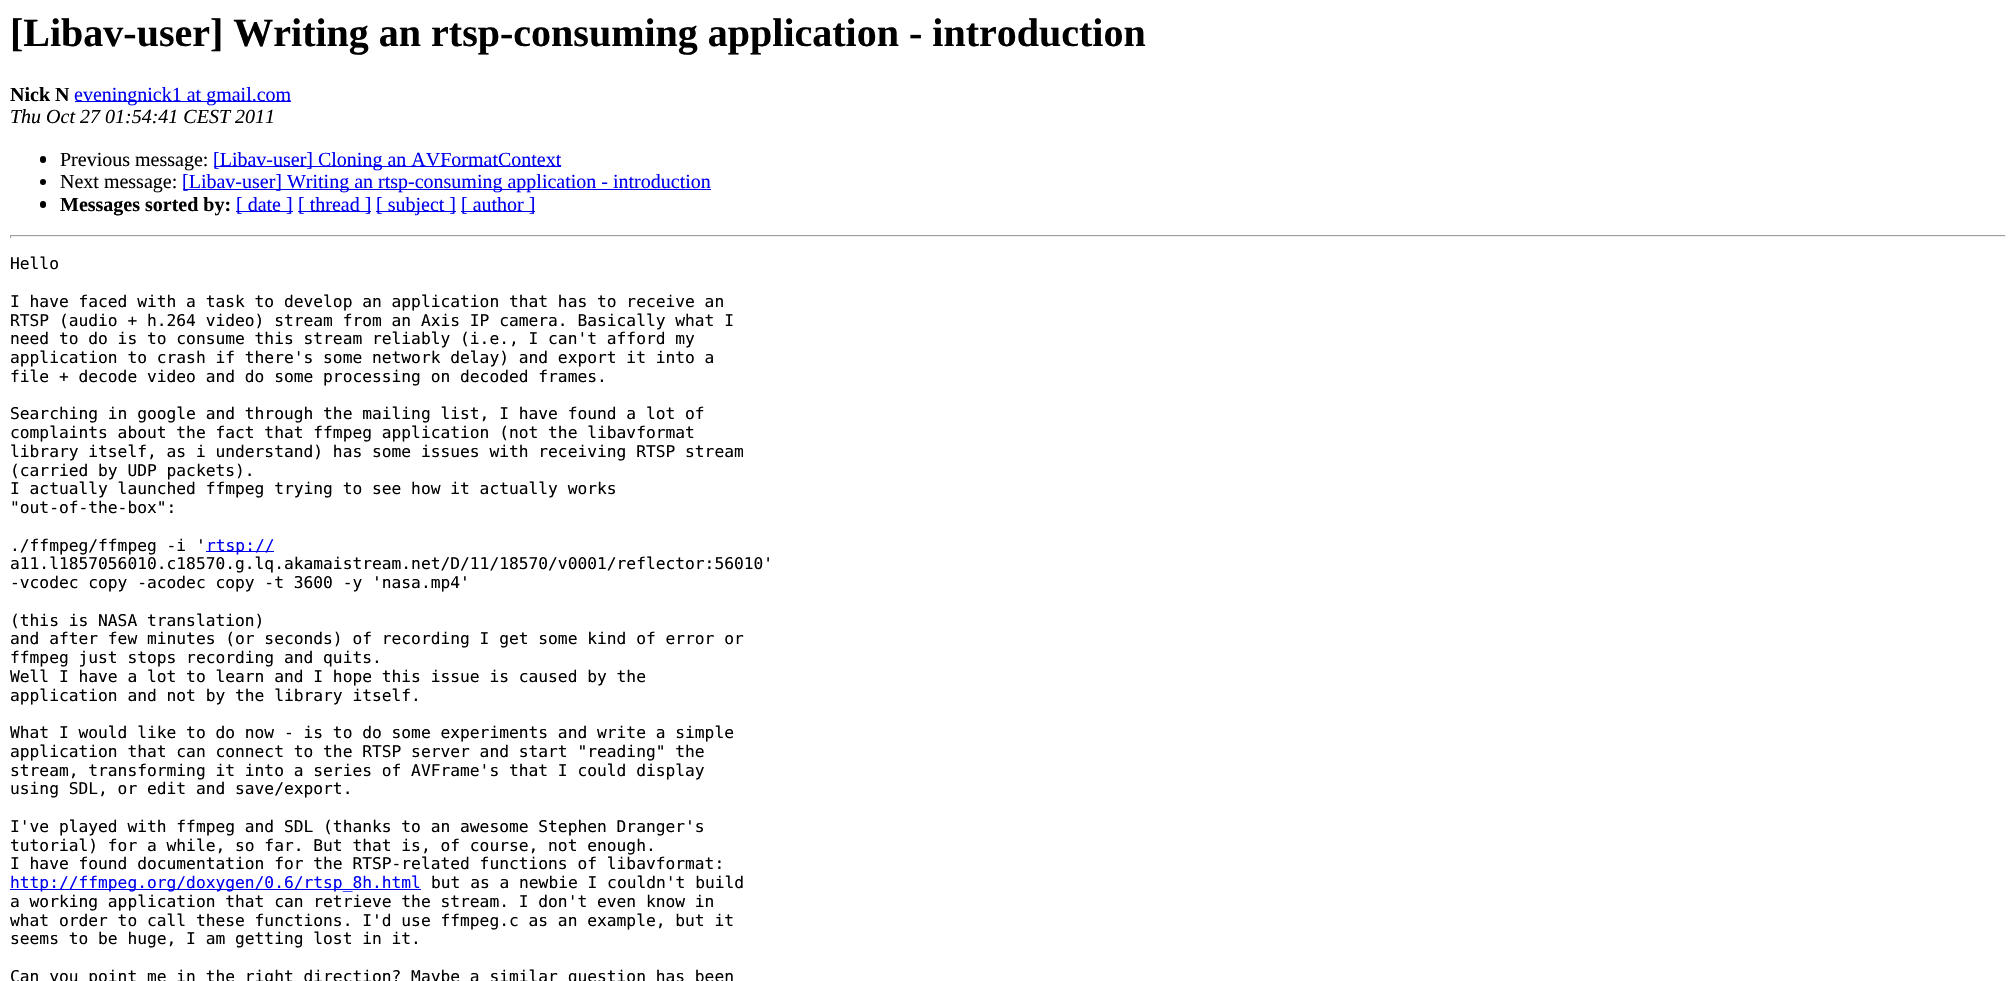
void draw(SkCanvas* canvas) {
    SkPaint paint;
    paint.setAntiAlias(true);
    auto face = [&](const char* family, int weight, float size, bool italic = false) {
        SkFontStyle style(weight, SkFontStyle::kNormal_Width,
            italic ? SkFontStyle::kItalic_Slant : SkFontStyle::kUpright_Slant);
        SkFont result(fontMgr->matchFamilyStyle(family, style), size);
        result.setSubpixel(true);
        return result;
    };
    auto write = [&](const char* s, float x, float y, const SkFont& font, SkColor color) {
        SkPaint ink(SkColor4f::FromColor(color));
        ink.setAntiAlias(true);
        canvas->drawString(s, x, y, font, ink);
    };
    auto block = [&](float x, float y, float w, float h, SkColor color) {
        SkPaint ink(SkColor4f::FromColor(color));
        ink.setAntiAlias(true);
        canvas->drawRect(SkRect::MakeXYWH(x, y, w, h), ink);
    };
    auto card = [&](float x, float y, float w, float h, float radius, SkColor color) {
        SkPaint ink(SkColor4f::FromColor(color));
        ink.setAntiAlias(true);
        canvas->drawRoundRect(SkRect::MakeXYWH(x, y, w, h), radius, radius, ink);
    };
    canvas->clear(SK_ColorWHITE);
    auto kFont1 = face("Liberation Serif", 700, 40);
    write("[Libav-user] Writing an rtsp-consuming application - introduction", 10, 46, kFont1, SK_ColorBLACK);
    auto kFont2 = face("Liberation Serif", 700, 20);
    write("Nick N", 10, 101, kFont2, SK_ColorBLACK);
    block(75, 101, 216, 1, SkColorSetRGB(0, 0, 238));
    auto kFont3 = face("Liberation Serif", 400, 20);
    write("eveningnick1 at gmail.com", 74, 101, kFont3, SkColorSetRGB(0, 0, 238));
    auto kFont4 = face("Liberation Serif", 400, 20, true);
    write("Thu Oct 27 01:54:41 CEST 2011", 10, 123, kFont4, SK_ColorBLACK);
    card(40, 156, 6, 7, 3, SK_ColorBLACK);
    write("Previous message:", 60, 166, kFont3, SK_ColorBLACK);
    block(214, 166, 347, 1, SkColorSetRGB(0, 0, 238));
    write("[Libav-user] Cloning an AVFormatContext", 213, 166, kFont3, SkColorSetRGB(0, 0, 238));
    paint.setColor(SK_ColorBLACK);
    canvas->drawCircle(43, 182, 3, paint);
    write("Next message:", 60, 188, kFont3, SK_ColorBLACK);
    block(183, 189, 528, 1, SkColorSetRGB(0, 0, 238));
    write("[Libav-user] Writing an rtsp-consuming application - introduction", 182, 188, kFont3, SkColorSetRGB(0, 0, 238));
    card(40, 201, 6, 7, 3, SK_ColorBLACK);
    write("Messages sorted by:", 60, 211, kFont2, SK_ColorBLACK);
    block(236, 211, 57, 1, SkColorSetRGB(0, 0, 238));
    write("[ date ]", 236, 211, kFont3, SkColorSetRGB(0, 0, 238));
    block(298, 211, 73, 1, SkColorSetRGB(0, 0, 238));
    write("[ thread ]", 298, 211, kFont3, SkColorSetRGB(0, 0, 238));
    block(376, 211, 80, 1, SkColorSetRGB(0, 0, 238));
    write("[ subject ]", 376, 211, kFont3, SkColorSetRGB(0, 0, 238));
    block(461, 211, 74, 1, SkColorSetRGB(0, 0, 238));
    write("[ author ]", 461, 211, kFont3, SkColorSetRGB(0, 0, 238));
    block(10, 235, 1996, 1, SkColorSetRGB(159, 159, 159));
    block(2005, 235, 1, 3, SkColorSetRGB(238, 238, 238));
    block(10, 236, 1996, 1, SkColorSetRGB(238, 238, 238));
    block(10, 235, 1, 3, SkColorSetRGB(159, 159, 159));
    auto kFont5 = face("DejaVu Sans Mono", 400, 16.25f);
    write("Hello", 10, 269, kFont5, SK_ColorBLACK);
    write("I have faced with a task to develop an application that has to receive an", 10, 307, kFont5, SK_ColorBLACK);
    write("RTSP (audio + h.264 video) stream from an Axis IP camera. Basically what I", 10, 326, kFont5, SK_ColorBLACK);
    write("need to do is to consume this stream reliably (i.e., I can't afford my", 10, 344, kFont5, SK_ColorBLACK);
    write("application to crash if there's some network delay) and export it into a", 10, 363, kFont5, SK_ColorBLACK);
    write("file + decode video and do some processing on decoded frames.", 10, 382, kFont5, SK_ColorBLACK);
    write("Searching in google and through the mailing list, I have found a lot of", 10, 419, kFont5, SK_ColorBLACK);
    write("complaints about the fact that ffmpeg application (not the libavformat", 10, 438, kFont5, SK_ColorBLACK);
    write("library itself, as i understand) has some issues with receiving RTSP stream", 10, 457, kFont5, SK_ColorBLACK);
    write("(carried by UDP packets).", 10, 476, kFont5, SK_ColorBLACK);
    write("I actually launched ffmpeg trying to see how it actually works", 10, 494, kFont5, SK_ColorBLACK);
    write("\"out-of-the-box\":", 10, 513, kFont5, SK_ColorBLACK);
    write("./ffmpeg/ffmpeg -i '", 10, 551, kFont5, SK_ColorBLACK);
    block(206, 551, 68, 1, SkColorSetRGB(0, 0, 238));
    write("rtsp://", 206, 551, kFont5, SkColorSetRGB(0, 0, 238));
    write("a11.l1857056010.c18570.g.lq.akamaistream.net/D/11/18570/v0001/reflector:56010'", 10, 569, kFont5, SK_ColorBLACK);
    write("-vcodec copy -acodec copy -t 3600 -y 'nasa.mp4'", 10, 588, kFont5, SK_ColorBLACK);
    write("(this is NASA translation)", 10, 626, kFont5, SK_ColorBLACK);
    write("and after few minutes (or seconds) of recording I get some kind of error or", 10, 644, kFont5, SK_ColorBLACK);
    write("ffmpeg just stops recording and quits.", 10, 663, kFont5, SK_ColorBLACK);
    write("Well I have a lot to learn and I hope this issue is caused by the", 10, 682, kFont5, SK_ColorBLACK);
    write("application and not by the library itself.", 10, 701, kFont5, SK_ColorBLACK);
    write("What I would like to do now - is to do some experiments and write a simple", 10, 738, kFont5, SK_ColorBLACK);
    write("application that can connect to the RTSP server and start \"reading\" the", 10, 757, kFont5, SK_ColorBLACK);
    write("stream, transforming it into a series of AVFrame's that I could display", 10, 776, kFont5, SK_ColorBLACK);
    write("using SDL, or edit and save/export.", 10, 794, kFont5, SK_ColorBLACK);
    write("I've played with ffmpeg and SDL (thanks to an awesome Stephen Dranger's", 10, 832, kFont5, SK_ColorBLACK);
    write("tutorial) for a while, so far. But that is, of course, not enough.", 10, 851, kFont5, SK_ColorBLACK);
    write("I have found documentation for the RTSP-related functions of libavformat:", 10, 869, kFont5, SK_ColorBLACK);
    block(10, 889, 411, 1, SkColorSetRGB(0, 0, 238));
    write("http://ffmpeg.org/doxygen/0.6/rtsp_8h.html", 10, 888, kFont5, SkColorSetRGB(0, 0, 238));
    write("but as a newbie I couldn't build", 431, 888, kFont5, SK_ColorBLACK);
    write("a working application that can retrieve the stream. I don't even know in", 10, 907, kFont5, SK_ColorBLACK);
    write("what order to call these functions. I'd use ffmpeg.c as an example, but it", 10, 926, kFont5, SK_ColorBLACK);
    write("seems to be huge, I am getting lost in it.", 10, 944, kFont5, SK_ColorBLACK);
    write("Can you point me in the right direction? Maybe a similar question has been", 10, 982, kFont5, SK_ColorBLACK);
}
